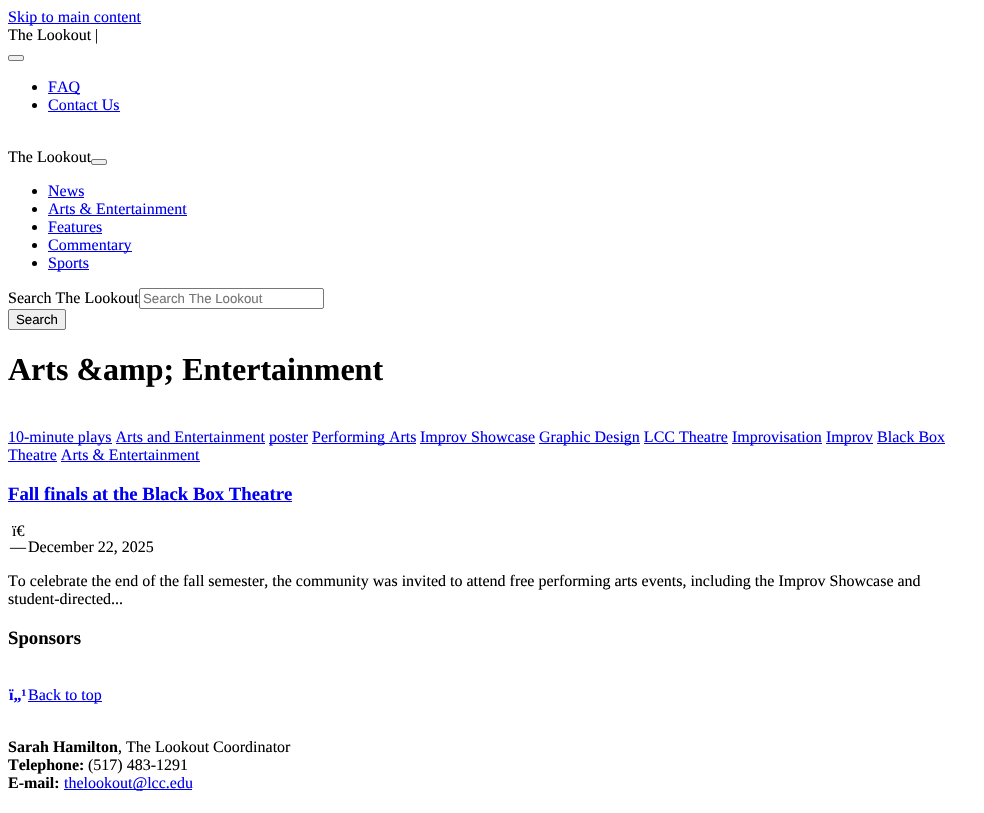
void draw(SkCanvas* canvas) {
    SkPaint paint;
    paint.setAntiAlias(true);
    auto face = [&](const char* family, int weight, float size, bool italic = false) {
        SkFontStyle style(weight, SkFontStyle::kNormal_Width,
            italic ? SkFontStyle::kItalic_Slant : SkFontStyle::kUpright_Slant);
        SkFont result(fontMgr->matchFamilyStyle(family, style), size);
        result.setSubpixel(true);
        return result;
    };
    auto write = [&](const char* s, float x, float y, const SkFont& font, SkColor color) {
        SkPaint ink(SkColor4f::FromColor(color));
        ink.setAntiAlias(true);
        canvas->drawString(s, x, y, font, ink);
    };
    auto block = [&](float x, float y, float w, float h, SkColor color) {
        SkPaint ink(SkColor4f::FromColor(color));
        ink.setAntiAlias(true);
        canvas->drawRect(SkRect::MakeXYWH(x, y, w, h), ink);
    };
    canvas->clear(SK_ColorWHITE);
    block(8, 23, 133, 1, SkColorSetRGB(0, 0, 238));
    auto kFont1 = face("Liberation Serif", 400, 16);
    write("Skip to main content", 8, 22, kFont1, SkColorSetRGB(0, 0, 238));
    write("The Lookout |", 8, 40, kFont1, SK_ColorBLACK);
    paint.setColor(SkColorSetRGB(239, 239, 239));
    canvas->drawRoundRect(SkRect::MakeXYWH(8.5f, 55.5f, 15, 5), 1.5f, 1.5f, paint);
    paint.setStyle(SkPaint::kStroke_Style);
    paint.setStrokeWidth(1);
    paint.setColor(SkColorSetRGB(118, 118, 118));
    canvas->drawRoundRect(SkRect::MakeXYWH(8.5f, 55.5f, 15, 5), 1.5f, 1.5f, paint);
    paint.setStyle(SkPaint::kFill_Style);
    paint.setColor(SK_ColorBLACK);
    canvas->drawCircle(34.5f, 87.5f, 2.5f, paint);
    block(48, 93, 32, 1, SkColorSetRGB(0, 0, 238));
    write("FAQ", 48, 92, kFont1, SkColorSetRGB(0, 0, 238));
    canvas->drawCircle(34.5f, 105.5f, 2.5f, paint);
    write("Contact Us", 48, 110, kFont1, SkColorSetRGB(0, 0, 238));
    block(48, 111, 72, 1, SkColorSetRGB(0, 0, 238));
    write("The Lookout", 8, 162, kFont1, SK_ColorBLACK);
    paint.setColor(SkColorSetRGB(239, 239, 239));
    canvas->drawRoundRect(SkRect::MakeXYWH(91.5f, 159.5f, 15, 5), 1.5f, 1.5f, paint);
    paint.setStyle(SkPaint::kStroke_Style);
    paint.setColor(SkColorSetRGB(118, 118, 118));
    canvas->drawRoundRect(SkRect::MakeXYWH(91.5f, 159.5f, 15, 5), 1.5f, 1.5f, paint);
    paint.setStyle(SkPaint::kFill_Style);
    paint.setColor(SK_ColorBLACK);
    canvas->drawCircle(34.5f, 191.5f, 2.5f, paint);
    write("News", 48, 196, kFont1, SkColorSetRGB(0, 0, 238));
    block(48, 197, 36, 1, SkColorSetRGB(0, 0, 238));
    canvas->drawCircle(34.5f, 209.5f, 2.5f, paint);
    write("Arts & Entertainment", 48, 214, kFont1, SkColorSetRGB(0, 0, 238));
    block(48, 215, 139, 1, SkColorSetRGB(0, 0, 238));
    canvas->drawCircle(34.5f, 227.5f, 2.5f, paint);
    write("Features", 48, 232, kFont1, SkColorSetRGB(0, 0, 238));
    block(48, 233, 54, 1, SkColorSetRGB(0, 0, 238));
    canvas->drawCircle(34.5f, 245.5f, 2.5f, paint);
    block(48, 251, 84, 1, SkColorSetRGB(0, 0, 238));
    write("Commentary", 48, 250, kFont1, SkColorSetRGB(0, 0, 238));
    canvas->drawCircle(34.5f, 263.5f, 2.5f, paint);
    block(48, 269, 41, 1, SkColorSetRGB(0, 0, 238));
    write("Sports", 48, 268, kFont1, SkColorSetRGB(0, 0, 238));
    write("Search The Lookout", 8, 303, kFont1, SK_ColorBLACK);
    paint.setStyle(SkPaint::kStroke_Style);
    paint.setColor(SkColorSetRGB(118, 118, 118));
    canvas->drawRoundRect(SkRect::MakeXYWH(139.5f, 288.5f, 184, 20), 1.5f, 1.5f, paint);
    auto kFont2 = face("Liberation Sans", 400, 13.25f);
    write("Search The Lookout", 143, 303, kFont2, SkColorSetRGB(117, 117, 117));
    paint.setStyle(SkPaint::kFill_Style);
    paint.setColor(SkColorSetRGB(239, 239, 239));
    canvas->drawRoundRect(SkRect::MakeXYWH(8.5f, 309.5f, 57, 20), 1.5f, 1.5f, paint);
    paint.setStyle(SkPaint::kStroke_Style);
    paint.setColor(SkColorSetRGB(118, 118, 118));
    canvas->drawRoundRect(SkRect::MakeXYWH(8.5f, 309.5f, 57, 20), 1.5f, 1.5f, paint);
    write("Search", 16, 324, kFont2, SK_ColorBLACK);
    auto kFont3 = face("Liberation Serif", 700, 32);
    write("Arts &amp; Entertainment", 8, 380, kFont3, SK_ColorBLACK);
    block(8, 443, 104, 1, SkColorSetRGB(0, 0, 238));
    write("10-minute plays Arts and Entertainment", 8, 442, kFont1, SkColorSetRGB(0, 0, 238));
    block(269, 443, 39, 1, SkColorSetRGB(0, 0, 238));
    write("poster", 269, 442, kFont1, SkColorSetRGB(0, 0, 238));
    block(312, 443, 104, 1, SkColorSetRGB(0, 0, 238));
    write("Performing Arts", 312, 442, kFont1, SkColorSetRGB(0, 0, 238));
    block(420, 443, 115, 1, SkColorSetRGB(0, 0, 238));
    write("Improv Showcase", 420, 442, kFont1, SkColorSetRGB(0, 0, 238));
    block(539, 443, 101, 1, SkColorSetRGB(0, 0, 238));
    write("Graphic Design LCC Theatre", 539, 442, kFont1, SkColorSetRGB(0, 0, 238));
    block(732, 443, 90, 1, SkColorSetRGB(0, 0, 238));
    write("Improvisation", 732, 442, kFont1, SkColorSetRGB(0, 0, 238));
    block(826, 443, 47, 1, SkColorSetRGB(0, 0, 238));
    write("Improv Black Box", 826, 442, kFont1, SkColorSetRGB(0, 0, 238));
    block(116, 443, 149, 1, SkColorSetRGB(0, 0, 238));
    block(644, 443, 84, 1, SkColorSetRGB(0, 0, 238));
    write("Theatre Arts & Entertainment", 8, 460, kFont1, SkColorSetRGB(0, 0, 238));
    block(877, 443, 68, 1, SkColorSetRGB(0, 0, 238));
    block(8, 461, 49, 1, SkColorSetRGB(0, 0, 238));
    block(61, 461, 139, 1, SkColorSetRGB(0, 0, 238));
    auto kFont4 = face("Liberation Serif", 700, 18.75f);
    write("Fall finals at the Black Box Theatre", 8, 500, kFont4, SkColorSetRGB(0, 0, 238));
    block(8, 501, 284, 1, SkColorSetRGB(0, 0, 238));
    write("ï€", 12, 536, kFont1, SK_ColorBLACK);
    write("—", 10, 552, kFont1, SK_ColorBLACK);
    write("December 22, 2025", 28, 552, kFont1, SK_ColorBLACK);
    write("To celebrate the end of the fall semester, the community was invited to attend free performing arts events, including the Improv Showcase and", 8, 586, kFont1, SK_ColorBLACK);
    write("student-directed...", 8, 604, kFont1, SK_ColorBLACK);
    write("Sponsors", 8, 644, kFont4, SK_ColorBLACK);
    auto kFont5 = face("Liberation Serif", 700, 16);
    write("ï„¹", 9, 700, kFont5, SkColorSetRGB(0, 0, 238));
    block(28, 701, 74, 1, SkColorSetRGB(0, 0, 238));
    write("Back to top", 28, 700, kFont1, SkColorSetRGB(0, 0, 238));
    write("Sarah Hamilton", 8, 752, kFont5, SK_ColorBLACK);
    write(", The Lookout Coordinator", 118, 752, kFont1, SK_ColorBLACK);
    write("Telephone:", 8, 770, kFont5, SK_ColorBLACK);
    write("(517) 483-1291", 88, 770, kFont1, SK_ColorBLACK);
    write("E-mail:", 8, 788, kFont5, SK_ColorBLACK);
    block(64, 789, 128, 1, SkColorSetRGB(0, 0, 238));
    write("thelookout@lcc.edu", 64, 788, kFont1, SkColorSetRGB(0, 0, 238));
}
